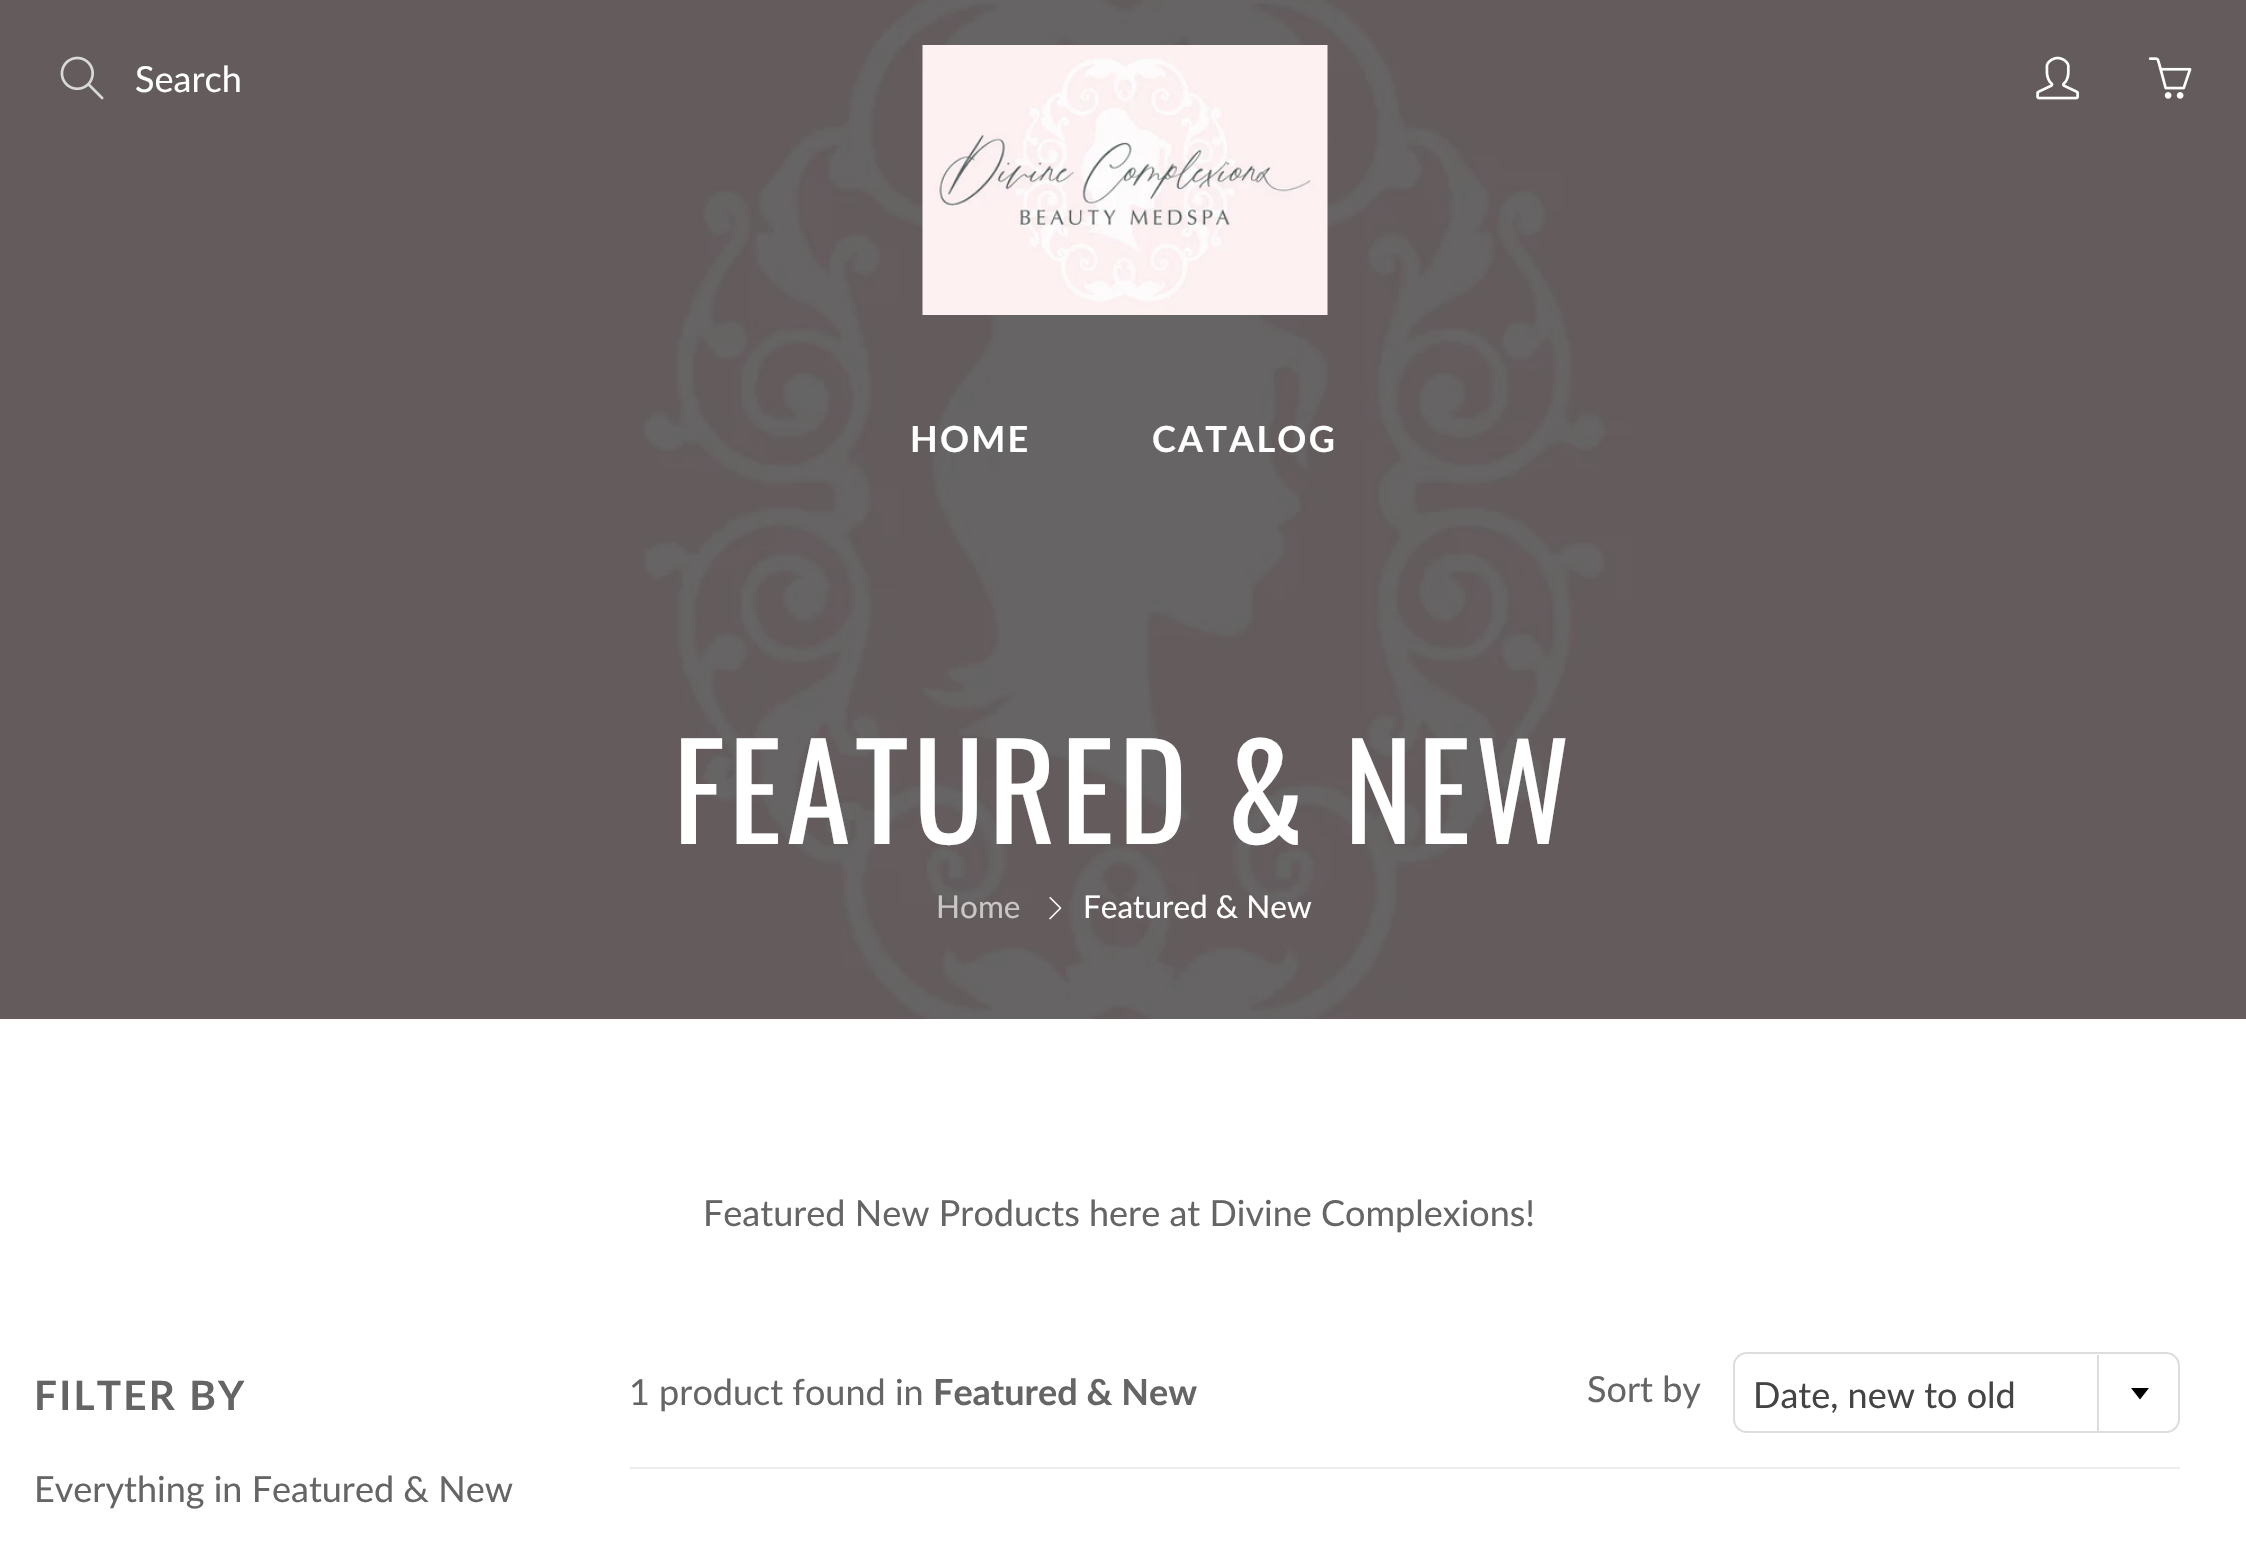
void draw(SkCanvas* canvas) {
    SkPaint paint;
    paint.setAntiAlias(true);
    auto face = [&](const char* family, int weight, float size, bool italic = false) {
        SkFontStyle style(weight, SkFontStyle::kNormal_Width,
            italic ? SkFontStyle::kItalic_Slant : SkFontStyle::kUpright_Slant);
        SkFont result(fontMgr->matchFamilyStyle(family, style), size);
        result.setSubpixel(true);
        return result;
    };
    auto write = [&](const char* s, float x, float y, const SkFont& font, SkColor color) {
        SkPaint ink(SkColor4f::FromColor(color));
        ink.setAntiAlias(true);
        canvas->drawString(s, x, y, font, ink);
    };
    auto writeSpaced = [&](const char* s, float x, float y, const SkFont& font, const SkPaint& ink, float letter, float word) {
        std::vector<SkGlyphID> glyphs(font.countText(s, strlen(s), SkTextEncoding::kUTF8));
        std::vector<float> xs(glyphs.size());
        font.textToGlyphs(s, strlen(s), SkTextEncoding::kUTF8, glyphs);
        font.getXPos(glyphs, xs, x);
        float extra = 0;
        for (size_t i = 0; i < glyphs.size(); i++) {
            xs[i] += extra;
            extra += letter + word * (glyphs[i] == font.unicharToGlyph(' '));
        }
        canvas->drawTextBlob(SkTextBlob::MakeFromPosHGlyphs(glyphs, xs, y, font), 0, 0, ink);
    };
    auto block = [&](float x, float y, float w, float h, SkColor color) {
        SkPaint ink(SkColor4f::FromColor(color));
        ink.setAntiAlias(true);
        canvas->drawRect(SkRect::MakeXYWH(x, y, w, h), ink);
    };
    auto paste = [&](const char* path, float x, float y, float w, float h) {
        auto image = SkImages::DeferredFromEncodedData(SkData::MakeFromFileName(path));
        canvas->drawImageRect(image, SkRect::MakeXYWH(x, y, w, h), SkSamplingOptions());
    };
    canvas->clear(SK_ColorWHITE);
    paste("pic5.png", 0, 0, 2246, 1020);
    paste("pic1.png", 60, 56, 44, 44);
    auto kFont1 = face("Lato", 400, 36);
    write("Search", 135, 92, kFont1, SK_ColorWHITE);
    paste("pic2.png", 922, 45, 406, 270);
    paste("pic3.png", 2036, 56, 43, 44);
    paste("pic4.png", 2148, 57, 44, 42);
    auto kFont2 = face("Lato", 700, 36);
    paint.setColor(SK_ColorWHITE);
    writeSpaced("HOME", 910, 452, kFont2, paint, 2.25f, 0);
    writeSpaced("CATALOG", 1152, 452, kFont2, paint, 2.25f, 0);
    auto kFont3 = face("Oswald", 400, 130.5f);
    writeSpaced("FEATURED & NEW", 673, 844, kFont3, paint, 4.5f, 0);
    auto kFont4 = face("Lato", 400, 31.5f);
    write("Home", 936, 918, kFont4, SkColorSetRGB(201, 198, 198));
    paste("pic6.png", 1049, 897, 13, 23);
    write("Featured & New", 1083, 918, kFont4, SK_ColorWHITE);
    write("Featured New Products here at Divine Complexions!", 703, 1226, kFont1, SkColorSetRGB(102, 101, 101));
    auto kFont5 = face("Lato", 700, 40.5f);
    paint.setColor(SkColorSetRGB(102, 101, 101));
    writeSpaced("FILTER BY", 34, 1410, kFont5, paint, 2.25f, 0);
    write("Everything in Featured & New", 34, 1502, kFont1, SkColorSetRGB(102, 101, 101));
    block(630, 1467, 1550, 2, SkColorSetRGB(237, 237, 237));
    write("1 product found in", 629, 1405, kFont1, SkColorSetRGB(102, 101, 101));
    write("Featured & New", 933, 1405, kFont2, SkColorSetRGB(102, 101, 101));
    write("Sort by", 1587, 1402, kFont1, SkColorSetRGB(102, 101, 101));
    paint.setStyle(SkPaint::kStroke_Style);
    paint.setStrokeWidth(2);
    paint.setColor(SkColorSetRGB(221, 221, 221));
    canvas->drawRoundRect(SkRect::MakeXYWH(1734, 1353, 445, 79), 13, 13, paint);
    write("Date, new to old", 1753, 1408, kFont1, SkColorSetRGB(68, 68, 68));
    paint.setStyle(SkPaint::kFill_Style);
    paint.setColor(SK_ColorWHITE);
    canvas->drawPath(SkPathBuilder().moveTo(2097, 1355).lineTo(2164, 1355).cubicTo(2171.5f, 1355, 2178, 1361.5f, 2178, 1369).lineTo(2178, 1417).cubicTo(2178, 1424.5f, 2171.5f, 1431, 2164, 1431).lineTo(2097, 1431).close().detach(), paint);
    block(2097, 1355, 2, 76, SkColorSetRGB(221, 221, 221));
    paint.setColor(SK_ColorBLACK);
    canvas->drawPath(SkPathBuilder().moveTo(2131, 1388).lineTo(2149, 1388).lineTo(2140, 1399.5f).close().detach(), paint);
}
